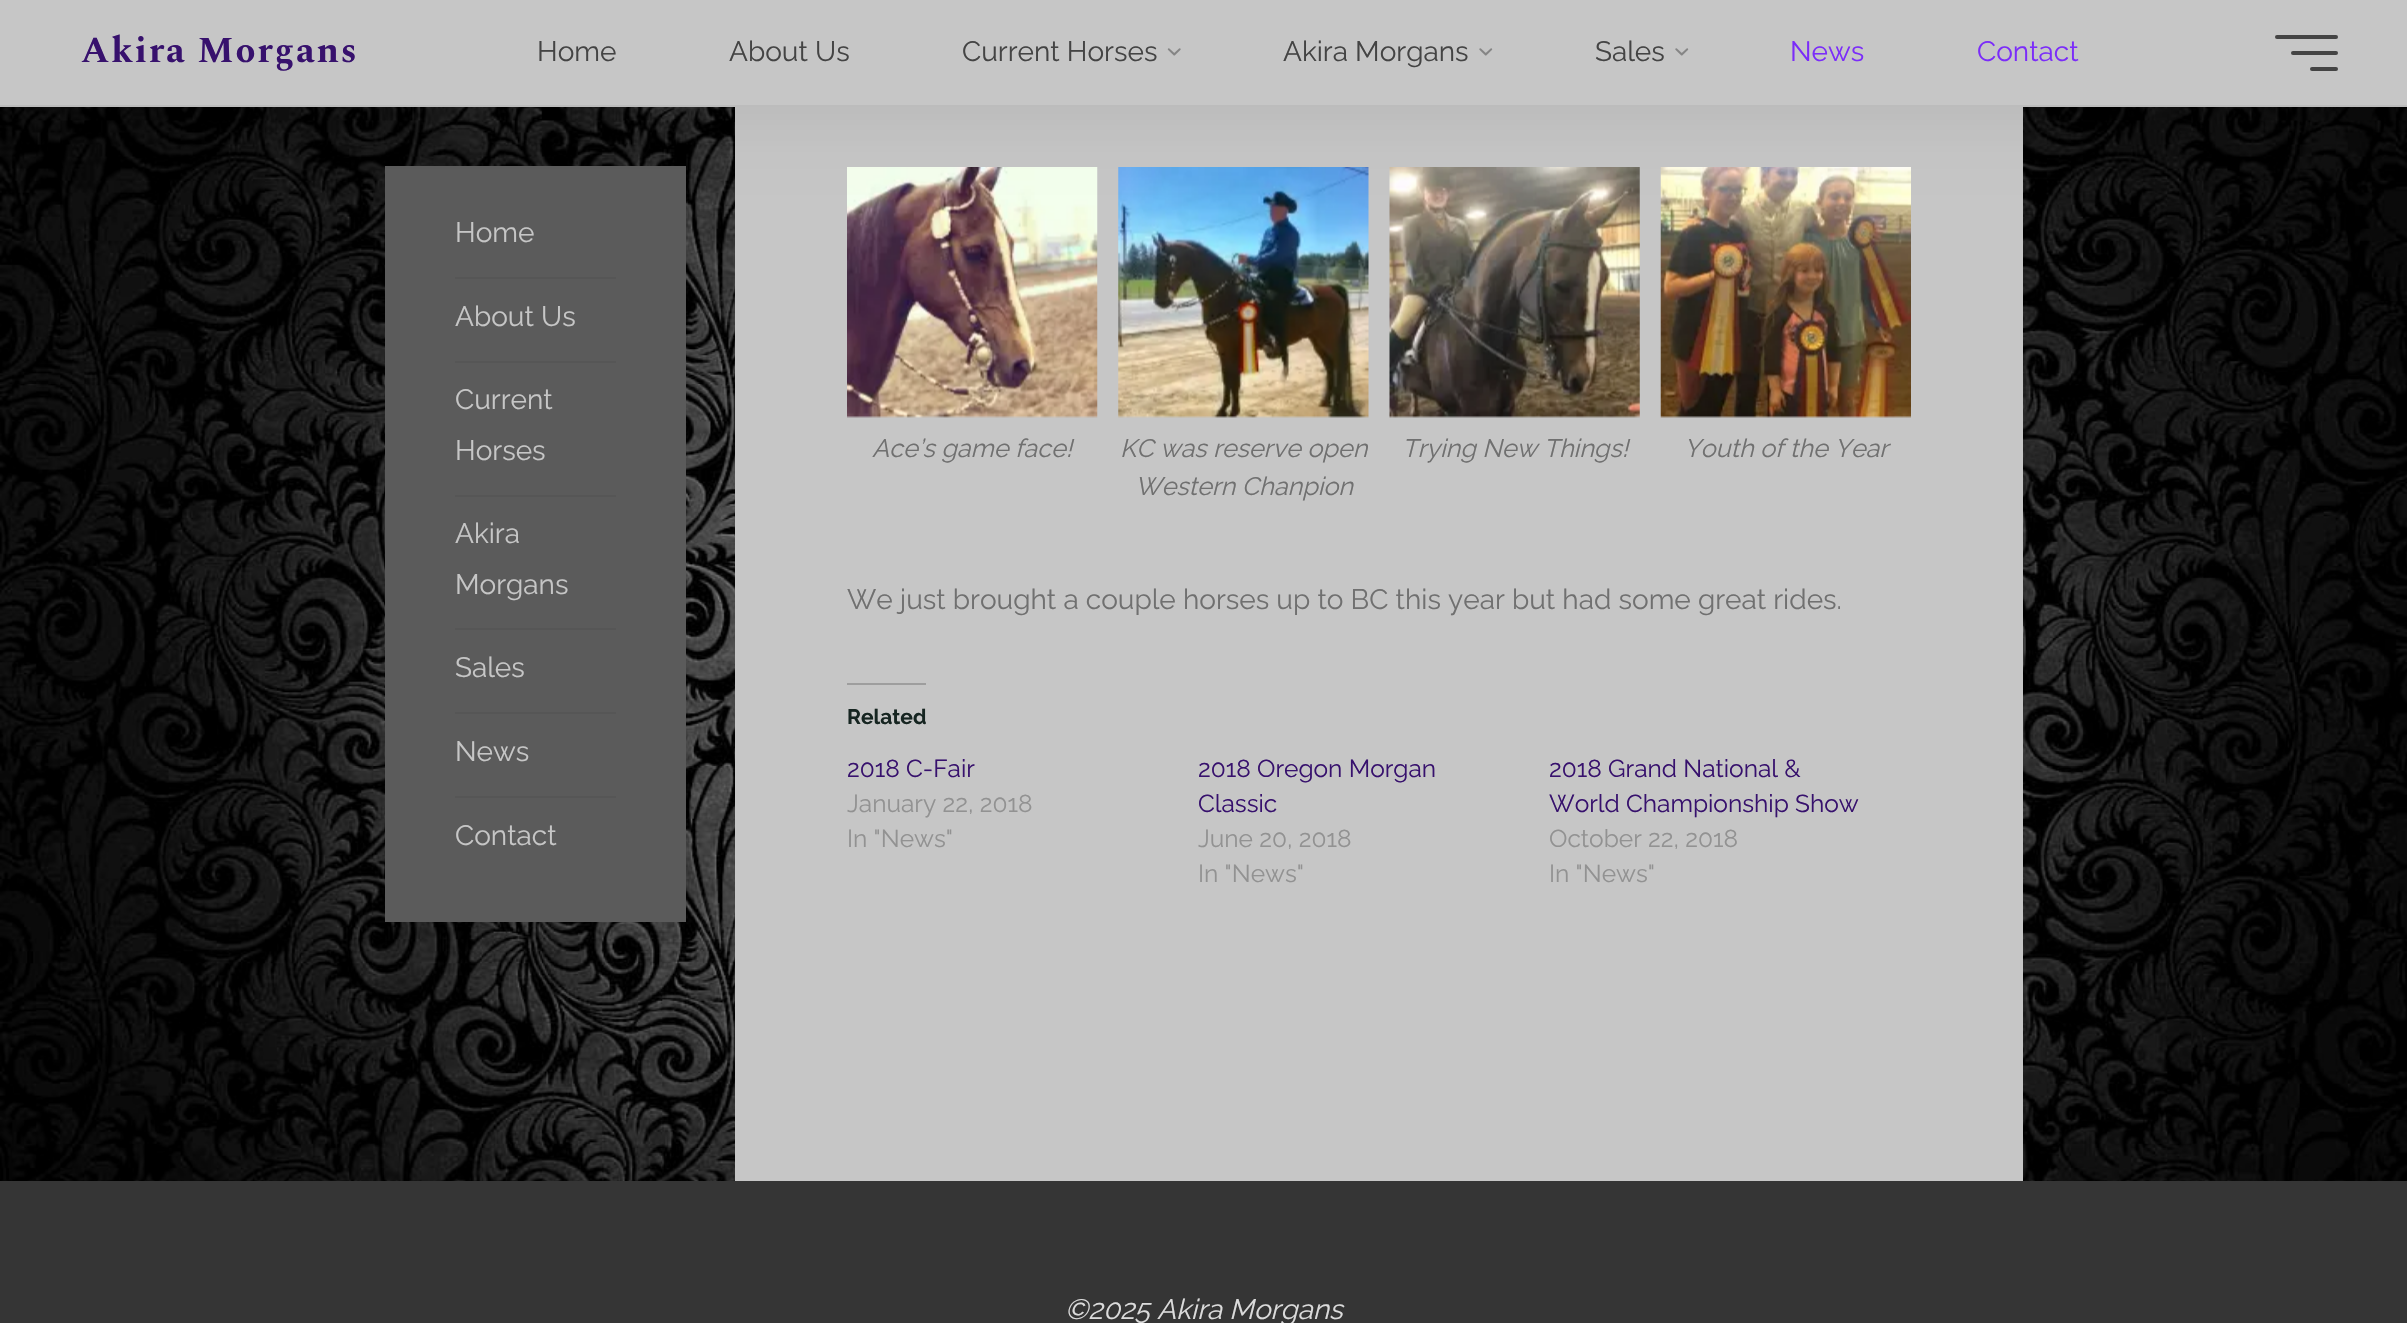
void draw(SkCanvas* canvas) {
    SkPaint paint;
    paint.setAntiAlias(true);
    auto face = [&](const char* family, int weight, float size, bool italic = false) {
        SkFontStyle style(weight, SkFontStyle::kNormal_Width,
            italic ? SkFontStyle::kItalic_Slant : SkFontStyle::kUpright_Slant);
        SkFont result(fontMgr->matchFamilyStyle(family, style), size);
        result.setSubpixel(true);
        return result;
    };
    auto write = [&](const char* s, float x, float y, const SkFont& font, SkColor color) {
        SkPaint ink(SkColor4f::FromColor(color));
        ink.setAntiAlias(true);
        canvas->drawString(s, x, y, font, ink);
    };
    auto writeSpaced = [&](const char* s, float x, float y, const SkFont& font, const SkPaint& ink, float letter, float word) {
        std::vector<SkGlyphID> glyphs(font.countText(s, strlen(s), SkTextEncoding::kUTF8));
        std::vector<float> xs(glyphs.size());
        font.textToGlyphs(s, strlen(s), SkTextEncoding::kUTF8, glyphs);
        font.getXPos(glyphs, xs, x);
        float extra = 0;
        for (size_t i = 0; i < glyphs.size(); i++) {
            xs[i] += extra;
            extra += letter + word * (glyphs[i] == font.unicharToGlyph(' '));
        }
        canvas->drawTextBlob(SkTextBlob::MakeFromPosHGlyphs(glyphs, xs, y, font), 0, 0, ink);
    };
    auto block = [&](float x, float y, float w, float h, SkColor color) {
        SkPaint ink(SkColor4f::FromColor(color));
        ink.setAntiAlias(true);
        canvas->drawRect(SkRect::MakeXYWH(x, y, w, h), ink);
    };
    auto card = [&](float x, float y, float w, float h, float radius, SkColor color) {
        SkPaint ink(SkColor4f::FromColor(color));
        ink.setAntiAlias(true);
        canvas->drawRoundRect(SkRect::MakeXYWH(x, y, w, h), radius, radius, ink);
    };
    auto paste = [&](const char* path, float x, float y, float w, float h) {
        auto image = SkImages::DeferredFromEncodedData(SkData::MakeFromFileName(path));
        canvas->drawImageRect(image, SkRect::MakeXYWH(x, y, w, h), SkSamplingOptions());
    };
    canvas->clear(SK_ColorWHITE);
    paste("pic1.png", 0, 107, 2407, 1074);
    block(385, 166, 301, 756, SkColorSetRGB(91, 91, 91));
    block(735, 107, 1288, 1074, SkColorSetRGB(198, 198, 198));
    paste("pic4.png", 847, 167, 251, 251);
    paste("pic5.png", 1118, 167, 251, 251);
    paste("pic6.png", 1389, 167, 251, 251);
    paste("pic7.png", 1660, 167, 251, 251);
    paint.setColor(SkColorSetARGB(13, 0, 0, 0));
    paint.setMaskFilter(SkMaskFilter::MakeBlur(kNormal_SkBlurStyle, 26));
    canvas->drawRect(SkRect::MakeXYWH(0, 26, 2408, 107), paint);
    paint.setMaskFilter(nullptr);
    block(0, 0, 2407, 105, SkColorSetRGB(198, 198, 198));
    block(0, 105, 2407, 2, SkColorSetRGB(188, 188, 188));
    auto kFont1 = face("Spectral", 700, 36.5f);
    paint.setColor(SkColorSetRGB(55, 17, 109));
    writeSpaced("Akira Morgans", 81, 62, kFont1, paint, 1.75f, 0);
    auto kFont2 = face("Raleway", 400, 28);
    write("Home", 537, 61, kFont2, SkColorSetRGB(68, 68, 68));
    write("About Us", 729, 61, kFont2, SkColorSetRGB(68, 68, 68));
    write("Current Horses", 962, 61, kFont2, SkColorSetRGB(68, 68, 68));
    paste("pic2.png", 1167, 48, 14, 8);
    write("Akira Morgans", 1283, 61, kFont2, SkColorSetRGB(68, 68, 68));
    paste("pic3.png", 1479, 48, 14, 8);
    write("Sales", 1595, 61, kFont2, SkColorSetRGB(68, 68, 68));
    paste("pic3.png", 1675, 48, 14, 8);
    write("News", 1790, 61, kFont2, SkColorSetRGB(123, 44, 249));
    write("Contact", 1977, 61, kFont2, SkColorSetRGB(123, 44, 249));
    card(2275, 35, 63, 4, 2, SkColorSetRGB(68, 68, 68));
    card(2291, 51, 47, 4, 2, SkColorSetRGB(68, 68, 68));
    card(2310, 67, 28, 4, 2, SkColorSetRGB(68, 68, 68));
    block(455, 277, 161, 2, SkColorSetRGB(86, 86, 86));
    write("Home", 455, 242, kFont2, SkColorSetRGB(198, 198, 198));
    block(455, 361, 161, 2, SkColorSetRGB(86, 86, 86));
    write("About Us", 455, 326, kFont2, SkColorSetRGB(198, 198, 198));
    block(455, 495, 161, 2, SkColorSetRGB(86, 86, 86));
    write("Current", 455, 409, kFont2, SkColorSetRGB(198, 198, 198));
    write("Horses", 455, 460, kFont2, SkColorSetRGB(198, 198, 198));
    block(455, 628, 161, 2, SkColorSetRGB(86, 86, 86));
    write("Akira", 455, 543, kFont2, SkColorSetRGB(198, 198, 198));
    write("Morgans", 455, 594, kFont2, SkColorSetRGB(198, 198, 198));
    block(455, 712, 161, 2, SkColorSetRGB(86, 86, 86));
    write("Sales", 455, 677, kFont2, SkColorSetRGB(198, 198, 198));
    block(455, 796, 161, 2, SkColorSetRGB(86, 86, 86));
    write("News", 455, 761, kFont2, SkColorSetRGB(198, 198, 198));
    write("Contact", 455, 845, kFont2, SkColorSetRGB(198, 198, 198));
    auto kFont3 = face("Raleway", 400, 25.25f, true);
    write("Ace’s game face!", 872, 457, kFont3, SkColorSetRGB(112, 112, 112));
    write("KC was reserve open", 1120, 457, kFont3, SkColorSetRGB(112, 112, 112));
    write("Western Chanpion", 1135, 495, kFont3, SkColorSetRGB(112, 112, 112));
    write("Trying New Things!", 1402, 457, kFont3, SkColorSetRGB(112, 112, 112));
    write("Youth of the Year", 1684, 457, kFont3, SkColorSetRGB(112, 112, 112));
    write("We just brought a couple horses up to BC this year but had some great rides.", 847, 609, kFont2, SkColorSetRGB(112, 112, 112));
    block(847, 683, 79, 2, SkColorSetRGB(158, 158, 158));
    auto kFont4 = face("Raleway", 700, 21);
    write("Related", 847, 724, kFont4, SkColorSetRGB(22, 37, 33));
    auto kFont5 = face("Raleway", 400, 24.5f);
    write("2018 C-Fair", 847, 777, kFont5, SkColorSetRGB(55, 17, 109));
    write("January 22, 2018", 847, 812, kFont5, SkColorSetRGB(146, 146, 146));
    write("In \"News\"", 847, 847, kFont5, SkColorSetRGB(146, 146, 146));
    write("2018 Oregon Morgan", 1198, 777, kFont5, SkColorSetRGB(55, 17, 109));
    write("Classic", 1198, 812, kFont5, SkColorSetRGB(55, 17, 109));
    write("June 20, 2018", 1198, 847, kFont5, SkColorSetRGB(146, 146, 146));
    write("In \"News\"", 1198, 882, kFont5, SkColorSetRGB(146, 146, 146));
    write("2018 Grand National &", 1549, 777, kFont5, SkColorSetRGB(55, 17, 109));
    write("World Championship Show", 1549, 812, kFont5, SkColorSetRGB(55, 17, 109));
    write("October 22, 2018", 1549, 847, kFont5, SkColorSetRGB(146, 146, 146));
    write("In \"News\"", 1549, 882, kFont5, SkColorSetRGB(146, 146, 146));
    block(0, 1181, 2407, 142, SkColorSetRGB(53, 53, 53));
    auto kFont6 = face("Raleway", 400, 28, true);
    write("©2025 Akira Morgans", 1065, 1319, kFont6, SkColorSetRGB(219, 219, 219));
}
